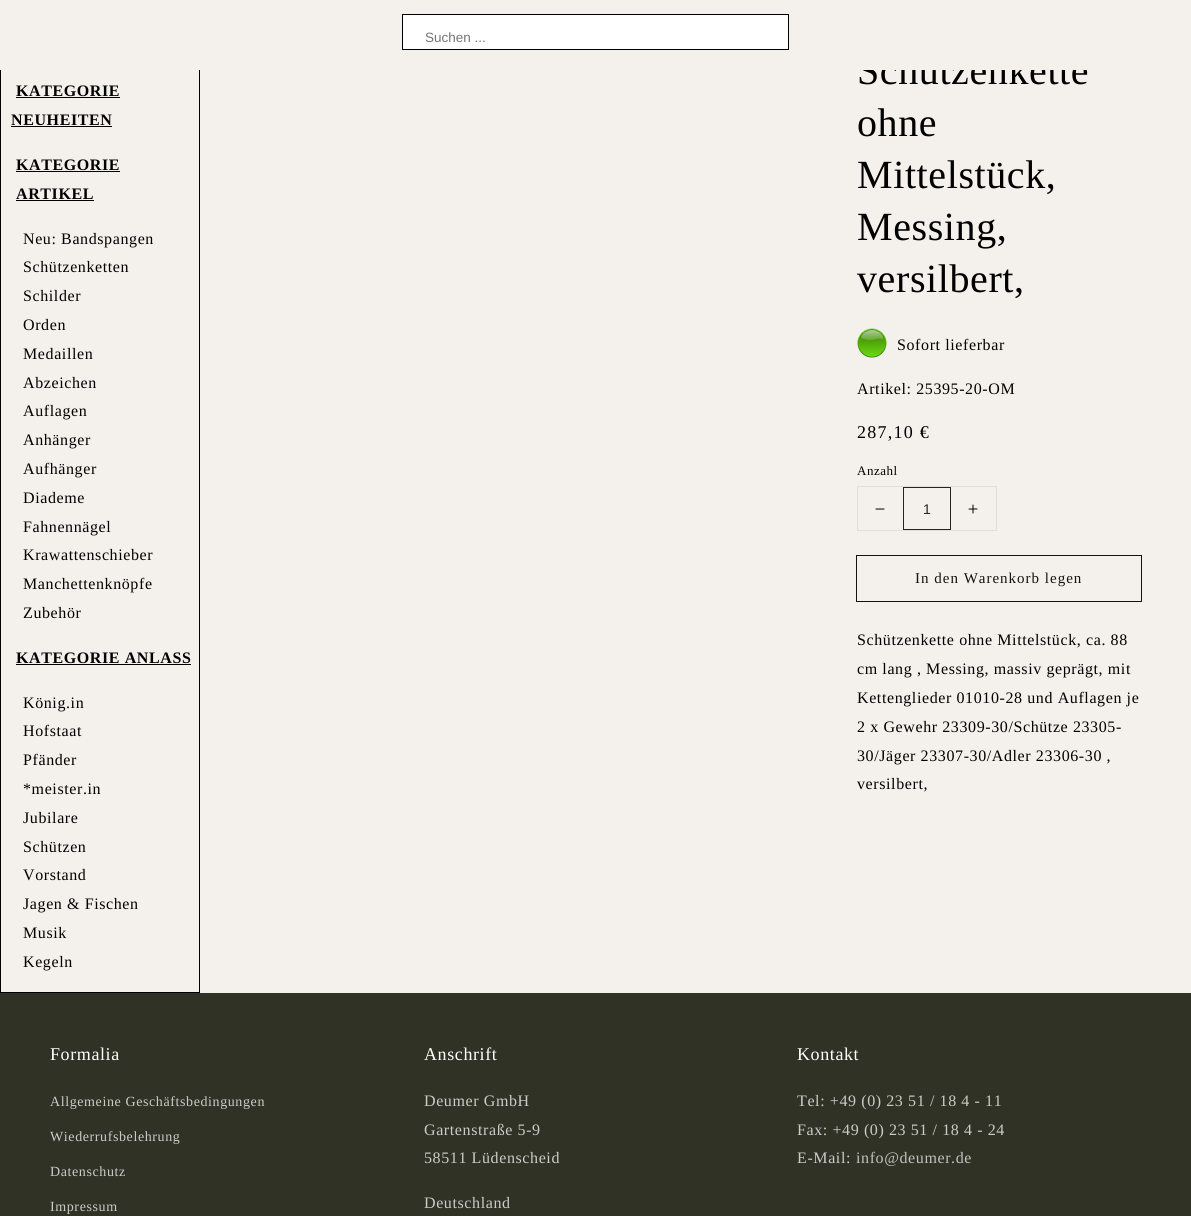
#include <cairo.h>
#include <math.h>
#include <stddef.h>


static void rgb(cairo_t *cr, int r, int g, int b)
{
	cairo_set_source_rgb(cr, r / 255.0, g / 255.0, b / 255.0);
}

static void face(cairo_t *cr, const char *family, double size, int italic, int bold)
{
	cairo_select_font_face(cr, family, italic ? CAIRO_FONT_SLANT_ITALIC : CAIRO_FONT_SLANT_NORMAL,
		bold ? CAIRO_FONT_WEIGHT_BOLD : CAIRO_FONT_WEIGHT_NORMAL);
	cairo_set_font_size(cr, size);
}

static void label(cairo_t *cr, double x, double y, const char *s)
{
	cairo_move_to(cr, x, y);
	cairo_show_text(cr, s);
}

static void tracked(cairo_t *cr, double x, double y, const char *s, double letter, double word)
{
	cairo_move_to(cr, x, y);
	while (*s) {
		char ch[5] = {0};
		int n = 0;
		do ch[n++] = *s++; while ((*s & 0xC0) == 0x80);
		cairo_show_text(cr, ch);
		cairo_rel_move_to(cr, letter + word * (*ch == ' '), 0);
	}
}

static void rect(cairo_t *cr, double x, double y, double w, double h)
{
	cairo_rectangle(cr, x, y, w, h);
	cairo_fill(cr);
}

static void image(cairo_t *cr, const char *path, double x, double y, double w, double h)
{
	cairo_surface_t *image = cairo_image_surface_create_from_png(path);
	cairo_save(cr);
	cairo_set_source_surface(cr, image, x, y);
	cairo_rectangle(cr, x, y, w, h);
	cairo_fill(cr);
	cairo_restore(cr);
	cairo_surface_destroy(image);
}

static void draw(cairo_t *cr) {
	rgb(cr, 244, 241, 236);
	cairo_paint(cr);
	cairo_rectangle(cr, 0.5, 45.5, 199, 947);
	rgb(cr, 0, 0, 0);
	cairo_set_line_width(cr, 1);
	cairo_stroke(cr);
	face(cr, "Liberation Serif", 40, 0, 0);
	tracked(cr, 857, 84, "Schützenkette", 0.6, 0);
	rgb(cr, 244, 241, 236);
	rect(cr, 0, 45, 1087, 25);
	rgb(cr, 255, 255, 255);
	cairo_rectangle(cr, 402.5, 14.5, 386, 35);
	cairo_fill_preserve(cr);
	rgb(cr, 0, 0, 0);
	cairo_stroke(cr);
	face(cr, "Liberation Sans", 13.5, 0, 0);
	rgb(cr, 117, 117, 117);
	label(cr, 425, 42, "Suchen ...");
	face(cr, "Liberation Serif", 16, 0, 1);
	rgb(cr, 0, 0, 0);
	tracked(cr, 16, 96, "KATEGORIE", 0.6, 0);
	rect(cr, 16, 97, 104, 1);
	tracked(cr, 11, 125, "NEUHEITEN", 0.6, 0);
	rect(cr, 11, 126, 101, 1);
	tracked(cr, 16, 170, "KATEGORIE", 0.6, 0);
	rect(cr, 16, 171, 104, 1);
	tracked(cr, 16, 199, "ARTIKEL", 0.6, 0);
	rect(cr, 16, 200, 78, 1);
	face(cr, "Liberation Serif", 16, 0, 0);
	tracked(cr, 23, 244, "Neu: Bandspangen", 0.6, 0);
	tracked(cr, 23, 272, "Schützenketten", 0.6, 0);
	tracked(cr, 23, 301, "Schilder", 0.6, 0);
	tracked(cr, 23, 330, "Orden", 0.6, 0);
	tracked(cr, 23, 359, "Medaillen", 0.6, 0);
	tracked(cr, 23, 388, "Abzeichen", 0.6, 0);
	tracked(cr, 23, 416, "Auflagen", 0.6, 0);
	tracked(cr, 23, 445, "Anhänger", 0.6, 0);
	tracked(cr, 23, 474, "Aufhänger", 0.6, 0);
	tracked(cr, 23, 503, "Diademe", 0.6, 0);
	tracked(cr, 23, 532, "Fahnennägel", 0.6, 0);
	tracked(cr, 23, 560, "Krawattenschieber", 0.6, 0);
	tracked(cr, 23, 589, "Manchettenknöpfe", 0.6, 0);
	tracked(cr, 23, 618, "Zubehör", 0.6, 0);
	face(cr, "Liberation Serif", 16, 0, 1);
	tracked(cr, 16, 663, "KATEGORIE ANLASS", 0.6, 0);
	rect(cr, 16, 664, 175, 1);
	face(cr, "Liberation Serif", 16, 0, 0);
	tracked(cr, 23, 708, "König.in", 0.6, 0);
	tracked(cr, 23, 736, "Hofstaat", 0.6, 0);
	tracked(cr, 23, 765, "Pfänder", 0.6, 0);
	tracked(cr, 23, 794, "*meister.in", 0.6, 0);
	tracked(cr, 23, 823, "Jubilare", 0.6, 0);
	tracked(cr, 23, 852, "Schützen", 0.6, 0);
	tracked(cr, 23, 880, "Vorstand", 0.6, 0);
	tracked(cr, 23, 909, "Jagen & Fischen", 0.6, 0);
	tracked(cr, 23, 938, "Musik", 0.6, 0);
	tracked(cr, 23, 967, "Kegeln", 0.6, 0);
	face(cr, "Liberation Serif", 40, 0, 0);
	tracked(cr, 857, 136, "ohne", 0.6, 0);
	tracked(cr, 857, 188, "Mittelstück,", 0.6, 0);
	tracked(cr, 857, 240, "Messing,", 0.6, 0);
	tracked(cr, 857, 292, "versilbert,", 0.6, 0);
	image(cr, "image0.png", 857, 328, 30, 30);
	face(cr, "Liberation Serif", 16, 0, 0);
	tracked(cr, 897, 350, "Sofort lieferbar", 0.6, 0);
	tracked(cr, 857, 394, "Artikel: 25395-20-OM", 0.6, 0);
	face(cr, "Liberation Serif", 18, 0, 0);
	tracked(cr, 857, 438, "287,10 €", 1.25, 0);
	face(cr, "Liberation Serif", 13, 0, 0);
	tracked(cr, 857, 475, "Anzahl", 0.5, 0);
	cairo_rectangle(cr, 857.5, 486.5, 139, 44);
	rgb(cr, 226, 223, 219);
	cairo_stroke(cr);
	image(cr, "image1.png", 875, 508, 10, 2);
	cairo_rectangle(cr, 903.5, 487.5, 47, 42);
	rgb(cr, 37, 36, 35);
	cairo_stroke(cr);
	face(cr, "Liberation Sans", 14, 0, 0);
	label(cr, 923, 514, "1");
	image(cr, "image2.png", 968, 504, 10, 10);
	cairo_rectangle(cr, 856.5, 555.5, 285, 46);
	rgb(cr, 18, 18, 18);
	cairo_stroke(cr);
	face(cr, "Liberation Serif", 15, 0, 0);
	tracked(cr, 915, 583, "In den Warenkorb legen", 1, 0);
	face(cr, "Liberation Serif", 16, 0, 0);
	rgb(cr, 0, 0, 0);
	tracked(cr, 857, 645, "Schützenkette ohne Mittelstück, ca. 88", 0.6, 0);
	tracked(cr, 857, 674, "cm lang , Messing, massiv geprägt, mit", 0.6, 0);
	tracked(cr, 857, 703, "Kettenglieder 01010-28 und Auflagen je", 0.6, 0);
	tracked(cr, 857, 732, "2 x Gewehr 23309-30/Schütze 23305-", 0.6, 0);
	tracked(cr, 857, 761, "30/Jäger 23307-30/Adler 23306-30 ,", 0.6, 0);
	tracked(cr, 857, 789, "versilbert,", 0.6, 0);
	rgb(cr, 47, 50, 37);
	rect(cr, 0, 993, 1191, 223);
	face(cr, "Liberation Serif", 18, 0, 0);
	rgb(cr, 255, 255, 255);
	tracked(cr, 50, 1060, "Formalia", 0.6, 0);
	face(cr, "Liberation Serif", 14, 0, 0);
	rgb(cr, 203, 204, 201);
	tracked(cr, 50, 1106, "Allgemeine Geschäftsbedingungen", 0.6, 0);
	tracked(cr, 50, 1141, "Wiederrufsbelehrung", 0.6, 0);
	tracked(cr, 50, 1176, "Datenschutz", 0.6, 0);
	tracked(cr, 50, 1211, "Impressum", 0.6, 0);
	face(cr, "Liberation Serif", 18, 0, 0);
	rgb(cr, 255, 255, 255);
	tracked(cr, 424, 1060, "Anschrift", 0.6, 0);
	face(cr, "Liberation Serif", 16, 0, 0);
	rgb(cr, 203, 204, 201);
	tracked(cr, 424, 1106, "Deumer GmbH", 0.6, 0);
	tracked(cr, 424, 1135, "Gartenstraße 5-9", 0.6, 0);
	tracked(cr, 424, 1163, "58511 Lüdenscheid", 0.6, 0);
	tracked(cr, 424, 1208, "Deutschland", 0.6, 0);
	face(cr, "Liberation Serif", 18, 0, 0);
	rgb(cr, 255, 255, 255);
	tracked(cr, 797, 1060, "Kontakt", 0.6, 0);
	face(cr, "Liberation Serif", 16, 0, 0);
	rgb(cr, 203, 204, 201);
	tracked(cr, 797, 1106, "Tel: +49 (0) 23 51 / 18 4 - 11", 0.6, 0);
	tracked(cr, 797, 1135, "Fax: +49 (0) 23 51 / 18 4 - 24", 0.6, 0);
	tracked(cr, 797, 1163, "E-Mail:", 0.6, 0);
	rgb(cr, 193, 194, 190);
	tracked(cr, 856, 1163, "info@deumer.de", 0.6, 0);
}

int main(void) {
	cairo_surface_t *surface = cairo_image_surface_create(CAIRO_FORMAT_RGB24, 1191, 1216);
	cairo_t *cr = cairo_create(surface);
	cairo_font_options_t *options = cairo_font_options_create();
	cairo_font_options_set_hint_metrics(options, CAIRO_HINT_METRICS_OFF);
	cairo_font_options_set_hint_style(options, CAIRO_HINT_STYLE_NONE);
	cairo_set_font_options(cr, options);
	cairo_set_miter_limit(cr, 4);
	draw(cr);
	cairo_surface_write_to_png(surface, "render.png");
	cairo_font_options_destroy(options);
	cairo_destroy(cr);
	cairo_surface_destroy(surface);
	return 0;
}
